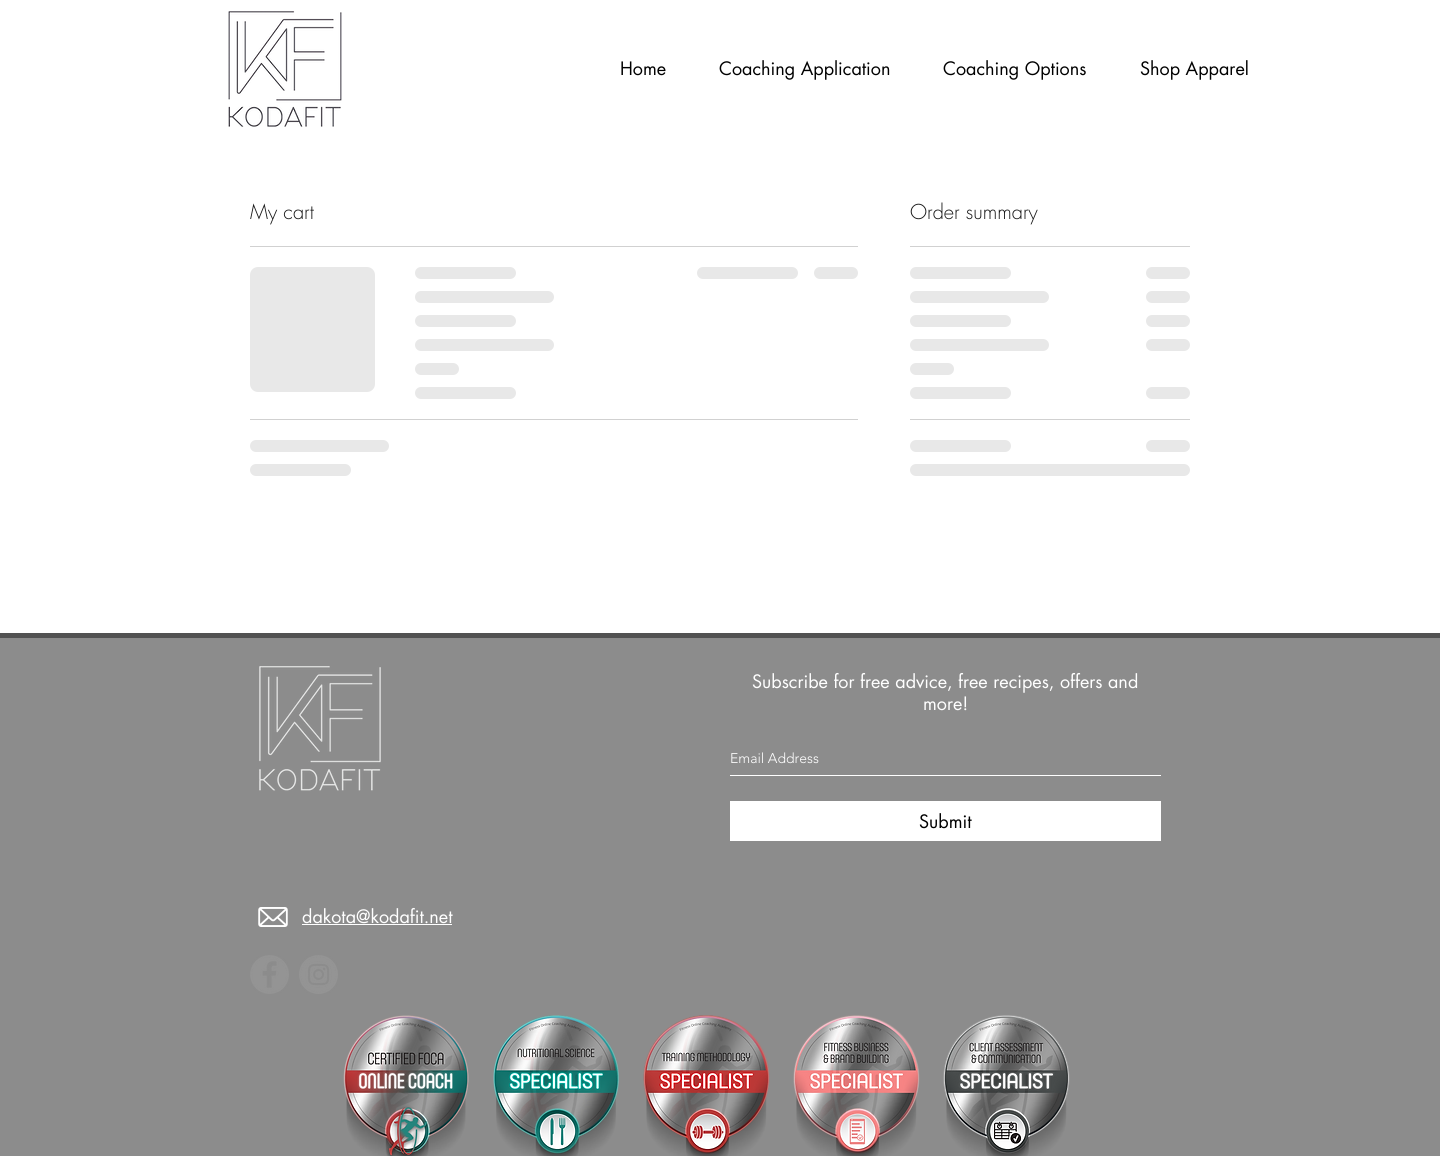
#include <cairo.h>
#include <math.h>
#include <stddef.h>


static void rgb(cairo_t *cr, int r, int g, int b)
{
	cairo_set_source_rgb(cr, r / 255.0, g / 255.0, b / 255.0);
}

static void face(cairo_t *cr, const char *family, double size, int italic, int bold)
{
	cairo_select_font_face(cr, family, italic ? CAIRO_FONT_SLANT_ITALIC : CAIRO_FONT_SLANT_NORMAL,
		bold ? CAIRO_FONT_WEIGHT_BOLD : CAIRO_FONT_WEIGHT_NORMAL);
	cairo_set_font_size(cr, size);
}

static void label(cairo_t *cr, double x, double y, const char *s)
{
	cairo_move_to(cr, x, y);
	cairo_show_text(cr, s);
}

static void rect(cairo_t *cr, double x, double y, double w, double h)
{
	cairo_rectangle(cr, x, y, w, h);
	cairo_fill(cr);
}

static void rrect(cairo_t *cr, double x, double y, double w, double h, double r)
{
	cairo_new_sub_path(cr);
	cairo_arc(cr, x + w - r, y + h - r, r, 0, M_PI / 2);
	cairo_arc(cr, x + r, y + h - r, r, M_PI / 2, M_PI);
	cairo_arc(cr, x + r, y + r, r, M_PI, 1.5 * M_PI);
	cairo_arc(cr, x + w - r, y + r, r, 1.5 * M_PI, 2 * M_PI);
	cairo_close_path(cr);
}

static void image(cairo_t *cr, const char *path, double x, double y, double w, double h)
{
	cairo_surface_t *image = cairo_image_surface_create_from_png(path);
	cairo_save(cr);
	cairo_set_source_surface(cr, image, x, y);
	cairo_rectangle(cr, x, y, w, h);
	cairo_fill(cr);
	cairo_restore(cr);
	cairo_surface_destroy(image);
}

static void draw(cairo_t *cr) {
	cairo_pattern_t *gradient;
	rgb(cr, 255, 255, 255);
	cairo_paint(cr);
	image(cr, "image0.png", 228, 11, 114, 116);
	face(cr, "futura", 18, 0, 0);
	rgb(cr, 0, 0, 0);
	label(cr, 620, 75, "Home");
	label(cr, 719, 75, "Coaching Application");
	label(cr, 943, 75, "Coaching Options");
	label(cr, 1140, 75, "Shop Apparel");
	rgb(cr, 209, 209, 209);
	rect(cr, 250, 246, 608, 1);
	face(cr, "futura Light", 20, 0, 0);
	rgb(cr, 24, 24, 24);
	label(cr, 250, 219, "My cart");
	gradient = cairo_pattern_create_linear(250, 330, 750, 330);
	cairo_pattern_add_color_stop_rgba(gradient, 0.25, 0.91, 0.91, 0.91, 1);
	cairo_pattern_add_color_stop_rgba(gradient, 0.37, 0.82, 0.82, 0.82, 1);
	cairo_pattern_add_color_stop_rgba(gradient, 0.63, 0.91, 0.91, 0.91, 1);
	cairo_set_source(cr, gradient);
	cairo_pattern_destroy(gradient);
	rrect(cr, 250, 267, 125, 125, 8);
	cairo_fill(cr);
	gradient = cairo_pattern_create_linear(415, 273, 819, 273);
	cairo_pattern_add_color_stop_rgba(gradient, 0.25, 0.91, 0.91, 0.91, 1);
	cairo_pattern_add_color_stop_rgba(gradient, 0.37, 0.82, 0.82, 0.82, 1);
	cairo_pattern_add_color_stop_rgba(gradient, 0.63, 0.91, 0.91, 0.91, 1);
	cairo_set_source(cr, gradient);
	cairo_pattern_destroy(gradient);
	rrect(cr, 415, 267, 101, 12, 6);
	cairo_fill(cr);
	gradient = cairo_pattern_create_linear(415, 297, 971, 297);
	cairo_pattern_add_color_stop_rgba(gradient, 0.25, 0.91, 0.91, 0.91, 1);
	cairo_pattern_add_color_stop_rgba(gradient, 0.37, 0.82, 0.82, 0.82, 1);
	cairo_pattern_add_color_stop_rgba(gradient, 0.63, 0.91, 0.91, 0.91, 1);
	cairo_set_source(cr, gradient);
	cairo_pattern_destroy(gradient);
	rrect(cr, 415, 291, 139, 12, 6);
	cairo_fill(cr);
	gradient = cairo_pattern_create_linear(415, 321, 819, 321);
	cairo_pattern_add_color_stop_rgba(gradient, 0.25, 0.91, 0.91, 0.91, 1);
	cairo_pattern_add_color_stop_rgba(gradient, 0.37, 0.82, 0.82, 0.82, 1);
	cairo_pattern_add_color_stop_rgba(gradient, 0.63, 0.91, 0.91, 0.91, 1);
	cairo_set_source(cr, gradient);
	cairo_pattern_destroy(gradient);
	rrect(cr, 415, 315, 101, 12, 6);
	cairo_fill(cr);
	gradient = cairo_pattern_create_linear(415, 345, 971, 345);
	cairo_pattern_add_color_stop_rgba(gradient, 0.25, 0.91, 0.91, 0.91, 1);
	cairo_pattern_add_color_stop_rgba(gradient, 0.37, 0.82, 0.82, 0.82, 1);
	cairo_pattern_add_color_stop_rgba(gradient, 0.63, 0.91, 0.91, 0.91, 1);
	cairo_set_source(cr, gradient);
	cairo_pattern_destroy(gradient);
	rrect(cr, 415, 339, 139, 12, 6);
	cairo_fill(cr);
	gradient = cairo_pattern_create_linear(415, 369, 591, 369);
	cairo_pattern_add_color_stop_rgba(gradient, 0.25, 0.91, 0.91, 0.91, 1);
	cairo_pattern_add_color_stop_rgba(gradient, 0.37, 0.82, 0.82, 0.82, 1);
	cairo_pattern_add_color_stop_rgba(gradient, 0.63, 0.91, 0.91, 0.91, 1);
	cairo_set_source(cr, gradient);
	cairo_pattern_destroy(gradient);
	rrect(cr, 415, 363, 44, 12, 6);
	cairo_fill(cr);
	gradient = cairo_pattern_create_linear(415, 393, 819, 393);
	cairo_pattern_add_color_stop_rgba(gradient, 0.25, 0.91, 0.91, 0.91, 1);
	cairo_pattern_add_color_stop_rgba(gradient, 0.37, 0.82, 0.82, 0.82, 1);
	cairo_pattern_add_color_stop_rgba(gradient, 0.63, 0.91, 0.91, 0.91, 1);
	cairo_set_source(cr, gradient);
	cairo_pattern_destroy(gradient);
	rrect(cr, 415, 387, 101, 12, 6);
	cairo_fill(cr);
	gradient = cairo_pattern_create_linear(697, 273, 1101, 273);
	cairo_pattern_add_color_stop_rgba(gradient, 0.25, 0.91, 0.91, 0.91, 1);
	cairo_pattern_add_color_stop_rgba(gradient, 0.37, 0.82, 0.82, 0.82, 1);
	cairo_pattern_add_color_stop_rgba(gradient, 0.63, 0.91, 0.91, 0.91, 1);
	cairo_set_source(cr, gradient);
	cairo_pattern_destroy(gradient);
	rrect(cr, 697, 267, 101, 12, 6);
	cairo_fill(cr);
	gradient = cairo_pattern_create_linear(814, 273, 990, 273);
	cairo_pattern_add_color_stop_rgba(gradient, 0.25, 0.91, 0.91, 0.91, 1);
	cairo_pattern_add_color_stop_rgba(gradient, 0.37, 0.82, 0.82, 0.82, 1);
	cairo_pattern_add_color_stop_rgba(gradient, 0.63, 0.91, 0.91, 0.91, 1);
	cairo_set_source(cr, gradient);
	cairo_pattern_destroy(gradient);
	rrect(cr, 814, 267, 44, 12, 6);
	cairo_fill(cr);
	rgb(cr, 209, 209, 209);
	rect(cr, 250, 419, 608, 1);
	gradient = cairo_pattern_create_linear(250, 446, 806, 446);
	cairo_pattern_add_color_stop_rgba(gradient, 0.25, 0.91, 0.91, 0.91, 1);
	cairo_pattern_add_color_stop_rgba(gradient, 0.37, 0.82, 0.82, 0.82, 1);
	cairo_pattern_add_color_stop_rgba(gradient, 0.63, 0.91, 0.91, 0.91, 1);
	cairo_set_source(cr, gradient);
	cairo_pattern_destroy(gradient);
	rrect(cr, 250, 440, 139, 12, 6);
	cairo_fill(cr);
	gradient = cairo_pattern_create_linear(250, 470, 654, 470);
	cairo_pattern_add_color_stop_rgba(gradient, 0.25, 0.91, 0.91, 0.91, 1);
	cairo_pattern_add_color_stop_rgba(gradient, 0.37, 0.82, 0.82, 0.82, 1);
	cairo_pattern_add_color_stop_rgba(gradient, 0.63, 0.91, 0.91, 0.91, 1);
	cairo_set_source(cr, gradient);
	cairo_pattern_destroy(gradient);
	rrect(cr, 250, 464, 101, 12, 6);
	cairo_fill(cr);
	rgb(cr, 209, 209, 209);
	rect(cr, 910, 246, 280, 1);
	rgb(cr, 24, 24, 24);
	label(cr, 910, 219, "Order summary");
	gradient = cairo_pattern_create_linear(910, 273, 1314, 273);
	cairo_pattern_add_color_stop_rgba(gradient, 0.25, 0.91, 0.91, 0.91, 1);
	cairo_pattern_add_color_stop_rgba(gradient, 0.37, 0.82, 0.82, 0.82, 1);
	cairo_pattern_add_color_stop_rgba(gradient, 0.63, 0.91, 0.91, 0.91, 1);
	cairo_set_source(cr, gradient);
	cairo_pattern_destroy(gradient);
	rrect(cr, 910, 267, 101, 12, 6);
	cairo_fill(cr);
	gradient = cairo_pattern_create_linear(1146, 273, 1322, 273);
	cairo_pattern_add_color_stop_rgba(gradient, 0.25, 0.91, 0.91, 0.91, 1);
	cairo_pattern_add_color_stop_rgba(gradient, 0.37, 0.82, 0.82, 0.82, 1);
	cairo_pattern_add_color_stop_rgba(gradient, 0.63, 0.91, 0.91, 0.91, 1);
	cairo_set_source(cr, gradient);
	cairo_pattern_destroy(gradient);
	rrect(cr, 1146, 267, 44, 12, 6);
	cairo_fill(cr);
	gradient = cairo_pattern_create_linear(910, 297, 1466, 297);
	cairo_pattern_add_color_stop_rgba(gradient, 0.25, 0.91, 0.91, 0.91, 1);
	cairo_pattern_add_color_stop_rgba(gradient, 0.37, 0.82, 0.82, 0.82, 1);
	cairo_pattern_add_color_stop_rgba(gradient, 0.63, 0.91, 0.91, 0.91, 1);
	cairo_set_source(cr, gradient);
	cairo_pattern_destroy(gradient);
	rrect(cr, 910, 291, 139, 12, 6);
	cairo_fill(cr);
	gradient = cairo_pattern_create_linear(1146, 297, 1322, 297);
	cairo_pattern_add_color_stop_rgba(gradient, 0.25, 0.91, 0.91, 0.91, 1);
	cairo_pattern_add_color_stop_rgba(gradient, 0.37, 0.82, 0.82, 0.82, 1);
	cairo_pattern_add_color_stop_rgba(gradient, 0.63, 0.91, 0.91, 0.91, 1);
	cairo_set_source(cr, gradient);
	cairo_pattern_destroy(gradient);
	rrect(cr, 1146, 291, 44, 12, 6);
	cairo_fill(cr);
	gradient = cairo_pattern_create_linear(910, 321, 1314, 321);
	cairo_pattern_add_color_stop_rgba(gradient, 0.25, 0.91, 0.91, 0.91, 1);
	cairo_pattern_add_color_stop_rgba(gradient, 0.37, 0.82, 0.82, 0.82, 1);
	cairo_pattern_add_color_stop_rgba(gradient, 0.63, 0.91, 0.91, 0.91, 1);
	cairo_set_source(cr, gradient);
	cairo_pattern_destroy(gradient);
	rrect(cr, 910, 315, 101, 12, 6);
	cairo_fill(cr);
	gradient = cairo_pattern_create_linear(1146, 321, 1322, 321);
	cairo_pattern_add_color_stop_rgba(gradient, 0.25, 0.91, 0.91, 0.91, 1);
	cairo_pattern_add_color_stop_rgba(gradient, 0.37, 0.82, 0.82, 0.82, 1);
	cairo_pattern_add_color_stop_rgba(gradient, 0.63, 0.91, 0.91, 0.91, 1);
	cairo_set_source(cr, gradient);
	cairo_pattern_destroy(gradient);
	rrect(cr, 1146, 315, 44, 12, 6);
	cairo_fill(cr);
	gradient = cairo_pattern_create_linear(910, 345, 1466, 345);
	cairo_pattern_add_color_stop_rgba(gradient, 0.25, 0.91, 0.91, 0.91, 1);
	cairo_pattern_add_color_stop_rgba(gradient, 0.37, 0.82, 0.82, 0.82, 1);
	cairo_pattern_add_color_stop_rgba(gradient, 0.63, 0.91, 0.91, 0.91, 1);
	cairo_set_source(cr, gradient);
	cairo_pattern_destroy(gradient);
	rrect(cr, 910, 339, 139, 12, 6);
	cairo_fill(cr);
	gradient = cairo_pattern_create_linear(1146, 345, 1322, 345);
	cairo_pattern_add_color_stop_rgba(gradient, 0.25, 0.91, 0.91, 0.91, 1);
	cairo_pattern_add_color_stop_rgba(gradient, 0.37, 0.82, 0.82, 0.82, 1);
	cairo_pattern_add_color_stop_rgba(gradient, 0.63, 0.91, 0.91, 0.91, 1);
	cairo_set_source(cr, gradient);
	cairo_pattern_destroy(gradient);
	rrect(cr, 1146, 339, 44, 12, 6);
	cairo_fill(cr);
	gradient = cairo_pattern_create_linear(910, 369, 1086, 369);
	cairo_pattern_add_color_stop_rgba(gradient, 0.25, 0.91, 0.91, 0.91, 1);
	cairo_pattern_add_color_stop_rgba(gradient, 0.37, 0.82, 0.82, 0.82, 1);
	cairo_pattern_add_color_stop_rgba(gradient, 0.63, 0.91, 0.91, 0.91, 1);
	cairo_set_source(cr, gradient);
	cairo_pattern_destroy(gradient);
	rrect(cr, 910, 363, 44, 12, 6);
	cairo_fill(cr);
	gradient = cairo_pattern_create_linear(910, 393, 1314, 393);
	cairo_pattern_add_color_stop_rgba(gradient, 0.25, 0.91, 0.91, 0.91, 1);
	cairo_pattern_add_color_stop_rgba(gradient, 0.37, 0.82, 0.82, 0.82, 1);
	cairo_pattern_add_color_stop_rgba(gradient, 0.63, 0.91, 0.91, 0.91, 1);
	cairo_set_source(cr, gradient);
	cairo_pattern_destroy(gradient);
	rrect(cr, 910, 387, 101, 12, 6);
	cairo_fill(cr);
	gradient = cairo_pattern_create_linear(1146, 393, 1322, 393);
	cairo_pattern_add_color_stop_rgba(gradient, 0.25, 0.91, 0.91, 0.91, 1);
	cairo_pattern_add_color_stop_rgba(gradient, 0.37, 0.82, 0.82, 0.82, 1);
	cairo_pattern_add_color_stop_rgba(gradient, 0.63, 0.91, 0.91, 0.91, 1);
	cairo_set_source(cr, gradient);
	cairo_pattern_destroy(gradient);
	rrect(cr, 1146, 387, 44, 12, 6);
	cairo_fill(cr);
	rgb(cr, 209, 209, 209);
	rect(cr, 910, 419, 280, 1);
	gradient = cairo_pattern_create_linear(910, 446, 1314, 446);
	cairo_pattern_add_color_stop_rgba(gradient, 0.25, 0.91, 0.91, 0.91, 1);
	cairo_pattern_add_color_stop_rgba(gradient, 0.37, 0.82, 0.82, 0.82, 1);
	cairo_pattern_add_color_stop_rgba(gradient, 0.63, 0.91, 0.91, 0.91, 1);
	cairo_set_source(cr, gradient);
	cairo_pattern_destroy(gradient);
	rrect(cr, 910, 440, 101, 12, 6);
	cairo_fill(cr);
	gradient = cairo_pattern_create_linear(1146, 446, 1322, 446);
	cairo_pattern_add_color_stop_rgba(gradient, 0.25, 0.91, 0.91, 0.91, 1);
	cairo_pattern_add_color_stop_rgba(gradient, 0.37, 0.82, 0.82, 0.82, 1);
	cairo_pattern_add_color_stop_rgba(gradient, 0.63, 0.91, 0.91, 0.91, 1);
	cairo_set_source(cr, gradient);
	cairo_pattern_destroy(gradient);
	rrect(cr, 1146, 440, 44, 12, 6);
	cairo_fill(cr);
	gradient = cairo_pattern_create_linear(910, 470, 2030, 470);
	cairo_pattern_add_color_stop_rgba(gradient, 0.25, 0.91, 0.91, 0.91, 1);
	cairo_pattern_add_color_stop_rgba(gradient, 0.37, 0.82, 0.82, 0.82, 1);
	cairo_pattern_add_color_stop_rgba(gradient, 0.63, 0.91, 0.91, 0.91, 1);
	cairo_set_source(cr, gradient);
	cairo_pattern_destroy(gradient);
	rrect(cr, 910, 464, 280, 12, 6);
	cairo_fill(cr);
	rgb(cr, 140, 140, 140);
	rect(cr, 0, 638, 1440, 518);
	rgb(cr, 82, 82, 82);
	rect(cr, 0, 633, 1440, 5);
	image(cr, "image1.png", 259, 666, 122, 125);
	face(cr, "futura", 18, 0, 0);
	rgb(cr, 255, 255, 255);
	label(cr, 752, 688, "Subscribe for free advice, free recipes, offers and");
	label(cr, 923, 710, "more!");
	rect(cr, 730, 775, 431, 1);
	face(cr, "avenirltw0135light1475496 Light", 14, 0, 0);
	label(cr, 730, 763, "Email Address");
	rect(cr, 730, 801, 431, 40);
	face(cr, "futura", 18, 0, 0);
	rgb(cr, 0, 0, 0);
	label(cr, 919, 828, "Submit");
	image(cr, "image2.png", 258, 907, 30, 20);
	rgb(cr, 255, 255, 255);
	label(cr, 302, 923, "dakota@kodafit.net");
	rect(cr, 302, 924, 150, 1);
	image(cr, "image3.png", 250, 955, 39, 39);
	image(cr, "image4.png", 299, 955, 39, 39);
	image(cr, "image5.png", 343, 1015, 126, 141);
	image(cr, "image6.png", 493, 1015, 127, 141);
	image(cr, "image7.png", 643, 1015, 127, 141);
	image(cr, "image8.png", 793, 1015, 127, 141);
	image(cr, "image9.png", 943, 1015, 127, 141);
}

int main(void) {
	cairo_surface_t *surface = cairo_image_surface_create(CAIRO_FORMAT_RGB24, 1440, 1156);
	cairo_t *cr = cairo_create(surface);
	cairo_font_options_t *options = cairo_font_options_create();
	cairo_font_options_set_hint_metrics(options, CAIRO_HINT_METRICS_OFF);
	cairo_font_options_set_hint_style(options, CAIRO_HINT_STYLE_NONE);
	cairo_set_font_options(cr, options);
	cairo_set_miter_limit(cr, 4);
	draw(cr);
	cairo_surface_write_to_png(surface, "render.png");
	cairo_font_options_destroy(options);
	cairo_destroy(cr);
	cairo_surface_destroy(surface);
	return 0;
}
